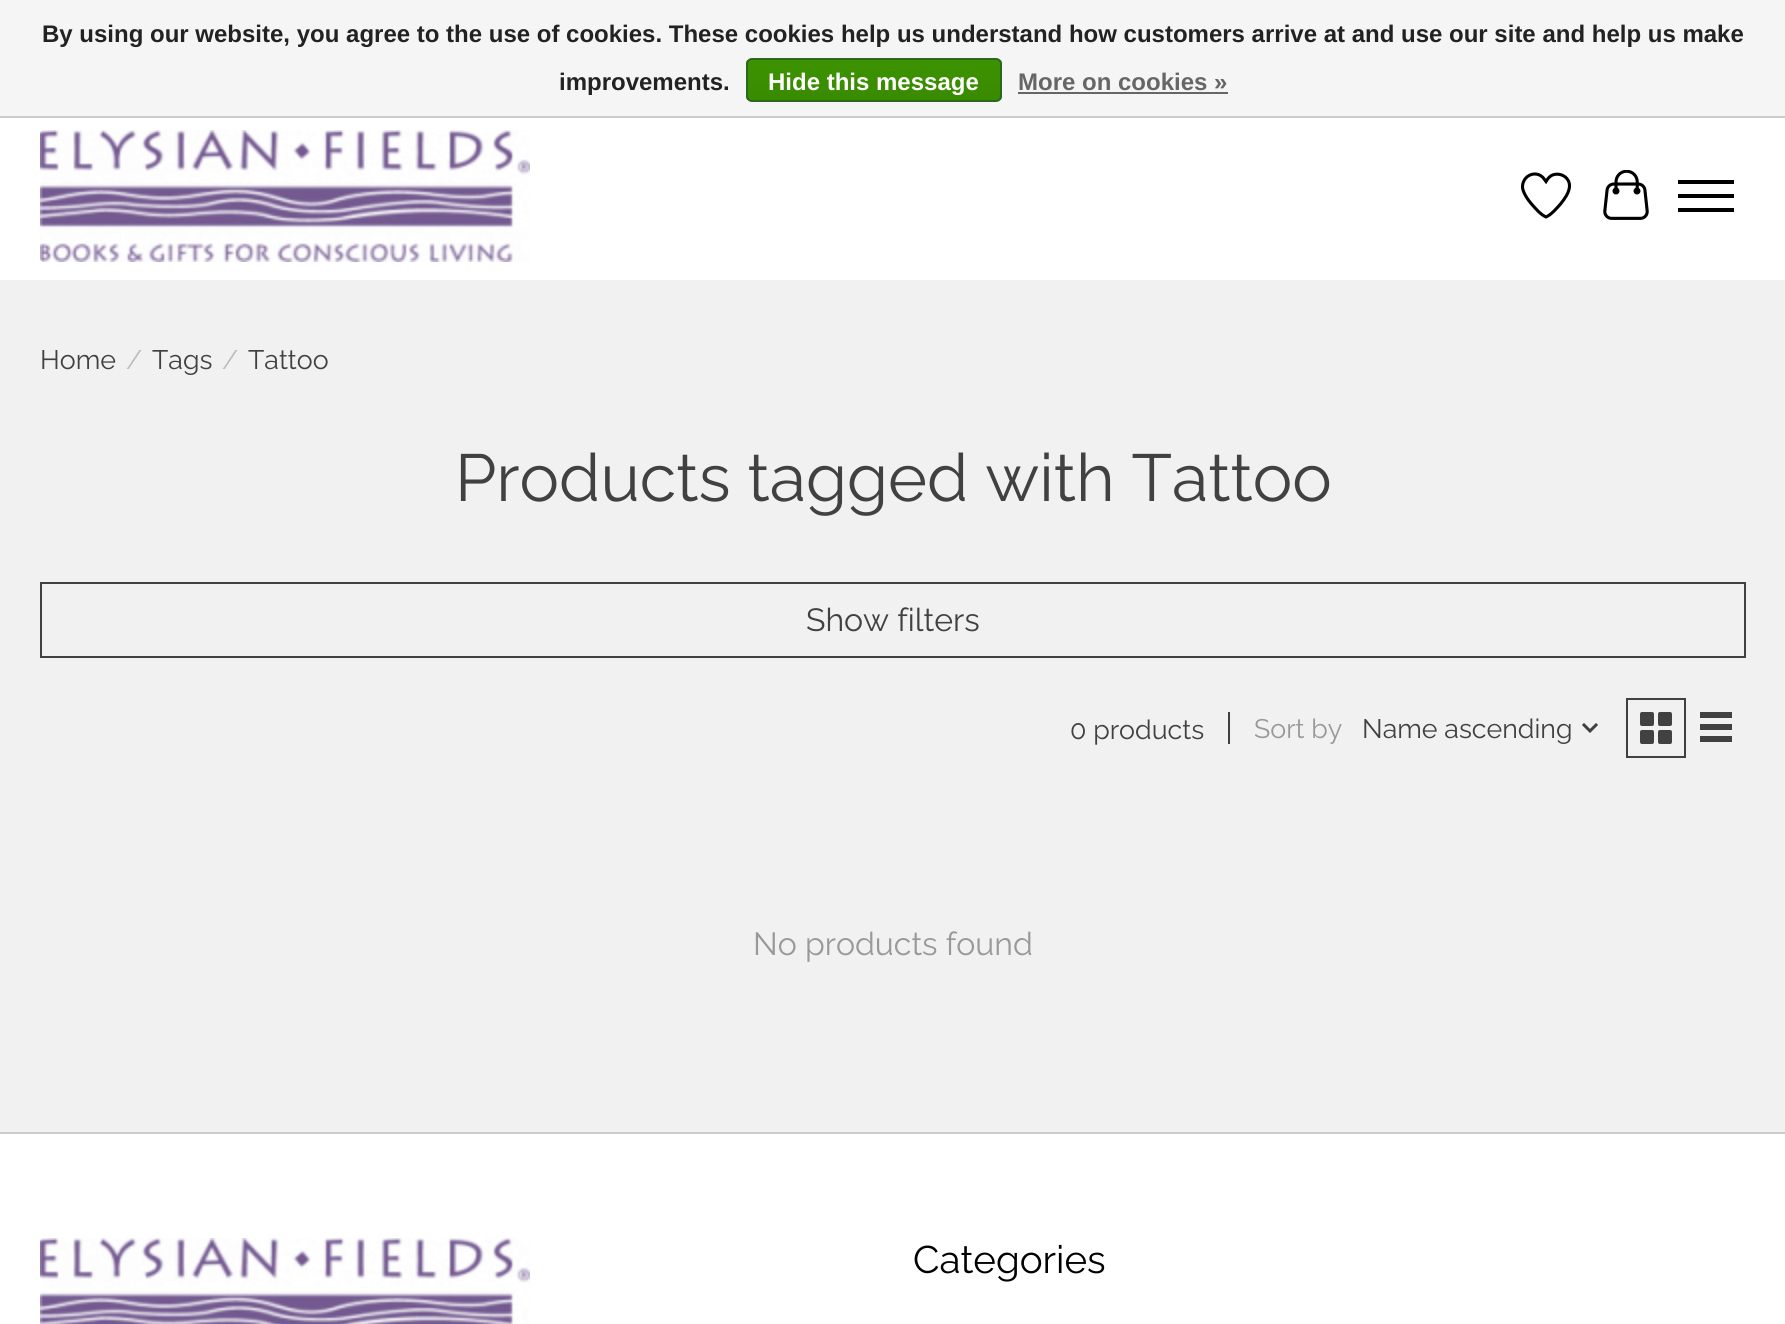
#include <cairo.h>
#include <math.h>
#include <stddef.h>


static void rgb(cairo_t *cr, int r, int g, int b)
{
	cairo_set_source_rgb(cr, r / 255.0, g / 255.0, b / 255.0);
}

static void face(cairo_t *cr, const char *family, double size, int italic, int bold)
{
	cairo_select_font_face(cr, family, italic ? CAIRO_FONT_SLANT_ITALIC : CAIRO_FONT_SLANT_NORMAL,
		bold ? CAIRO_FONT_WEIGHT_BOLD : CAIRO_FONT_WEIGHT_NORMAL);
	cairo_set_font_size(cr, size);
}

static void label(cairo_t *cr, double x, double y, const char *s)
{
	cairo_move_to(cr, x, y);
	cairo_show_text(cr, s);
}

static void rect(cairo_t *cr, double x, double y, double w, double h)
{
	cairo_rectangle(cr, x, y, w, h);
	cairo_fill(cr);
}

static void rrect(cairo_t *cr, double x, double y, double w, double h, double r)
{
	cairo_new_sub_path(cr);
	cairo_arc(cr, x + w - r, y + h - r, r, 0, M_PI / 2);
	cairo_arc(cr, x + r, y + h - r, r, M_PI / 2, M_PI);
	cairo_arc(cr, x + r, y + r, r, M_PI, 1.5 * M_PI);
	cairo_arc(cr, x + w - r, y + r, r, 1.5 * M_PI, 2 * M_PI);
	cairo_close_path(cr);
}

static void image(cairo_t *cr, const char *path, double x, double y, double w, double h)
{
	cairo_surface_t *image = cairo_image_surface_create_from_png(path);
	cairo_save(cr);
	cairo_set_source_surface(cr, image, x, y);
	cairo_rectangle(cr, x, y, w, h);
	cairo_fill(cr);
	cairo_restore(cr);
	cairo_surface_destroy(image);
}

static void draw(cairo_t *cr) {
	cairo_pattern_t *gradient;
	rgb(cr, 241, 241, 241);
	cairo_paint(cr);
	rgb(cr, 245, 245, 245);
	rect(cr, 0, 0, 1785, 116);
	rgb(cr, 204, 204, 204);
	rect(cr, 0, 116, 1785, 2);
	face(cr, "Liberation Sans", 24, 0, 1);
	rgb(cr, 34, 34, 34);
	label(cr, 42, 42, "By using our website, you agree to the use of cookies. These cookies help us understand how customers arrive at and use our site and help us make");
	label(cr, 559, 90, "improvements.");
	cairo_save(cr);
	rrect(cr, 746, 58, 256, 44, 6);
	cairo_clip(cr);
	gradient = cairo_pattern_create_linear(874, 60, 874, 100);
	cairo_pattern_add_color_stop_rgba(gradient, 0, 0.235, 0.576, 0, 1);
	cairo_pattern_add_color_stop_rgba(gradient, 1, 0.224, 0.541, 0, 1);
	cairo_set_source(cr, gradient);
	cairo_pattern_destroy(gradient);
	rect(cr, 746, 60, 256, 40);
	cairo_restore(cr);
	rrect(cr, 747, 59, 254, 42, 5);
	rgb(cr, 41, 105, 29);
	cairo_stroke(cr);
	rgb(cr, 255, 255, 255);
	label(cr, 768, 90, "Hide this message");
	rgb(cr, 102, 102, 102);
	label(cr, 1018, 90, "More on cookies »");
	rect(cr, 1018, 92, 210, 2);
	rgb(cr, 255, 255, 255);
	rect(cr, 0, 118, 1785, 162);
	image(cr, "image0.png", 40, 130, 490, 132);
	cairo_new_path(cr);
	cairo_move_to(cr, 1544.5, 179.5);
	cairo_line_to(cr, 1546, 181.5);
	cairo_curve_to(cr, 1547.5, 179, 1549, 177, 1551.5, 175.5);
	cairo_curve_to(cr, 1559.5, 171.5, 1570, 177, 1569.5, 186.5);
	cairo_curve_to(cr, 1569, 193, 1564.5, 199, 1560.5, 204);
	cairo_curve_to(cr, 1556.5, 208.5, 1551.5, 214.5, 1546, 217);
	cairo_curve_to(cr, 1540.5, 214.5, 1535.5, 208.5, 1531.5, 204);
	cairo_curve_to(cr, 1528, 200, 1522, 191.5, 1522.5, 186);
	cairo_curve_to(cr, 1523.5, 174, 1538, 169.5, 1544.5, 179.5);
	cairo_close_path(cr);
	rgb(cr, 0, 0, 0);
	cairo_set_line_width(cr, 3.1);
	cairo_stroke(cr);
	image(cr, "image1.png", 1603, 170, 46, 50);
	rect(cr, 1678, 194, 56, 4);
	rect(cr, 1678, 180, 56, 4);
	rect(cr, 1678, 208, 56, 4);
	face(cr, "Raleway", 26.75, 0, 0);
	rgb(cr, 65, 65, 65);
	label(cr, 40, 369, "Home");
	rgb(cr, 188, 188, 188);
	label(cr, 126, 369, "/");
	rgb(cr, 65, 65, 65);
	label(cr, 152, 369, "Tags");
	rgb(cr, 188, 188, 188);
	label(cr, 222, 369, "/");
	rgb(cr, 65, 65, 65);
	label(cr, 248, 369, "Tattoo");
	face(cr, "Raleway", 66.4, 0, 0);
	label(cr, 455, 501, "Products tagged with Tattoo");
	cairo_rectangle(cr, 41, 583, 1704, 74);
	cairo_set_line_width(cr, 2);
	cairo_stroke(cr);
	face(cr, "Raleway", 32, 0, 0);
	label(cr, 806, 631, "Show filters");
	face(cr, "Raleway", 26.75, 0, 0);
	label(cr, 1070, 739, "0 products");
	rect(cr, 1228, 712, 2, 32);
	rgb(cr, 153, 153, 153);
	label(cr, 1254, 738, "Sort by");
	rgb(cr, 65, 65, 65);
	label(cr, 1362, 738, "Name ascending");
	image(cr, "image2.png", 1582, 723, 16, 10);
	cairo_rectangle(cr, 1627, 699, 58, 58);
	cairo_stroke(cr);
	image(cr, "image3.png", 1640, 712, 32, 32);
	rect(cr, 1700, 712, 32, 6);
	rect(cr, 1700, 724, 32, 6);
	rect(cr, 1700, 736, 32, 6);
	face(cr, "Raleway", 32, 0, 0);
	rgb(cr, 153, 153, 153);
	label(cr, 753, 955, "No products found");
	rgb(cr, 255, 255, 255);
	rect(cr, 0, 1134, 1785, 190);
	rgb(cr, 204, 204, 204);
	rect(cr, 0, 1132, 1785, 2);
	image(cr, "image4.png", 40, 1238, 490, 86);
	face(cr, "Raleway", 38.5, 0, 0);
	rgb(cr, 0, 0, 0);
	label(cr, 913, 1273, "Categories");
}

int main(void) {
	cairo_surface_t *surface = cairo_image_surface_create(CAIRO_FORMAT_RGB24, 1785, 1324);
	cairo_t *cr = cairo_create(surface);
	cairo_font_options_t *options = cairo_font_options_create();
	cairo_font_options_set_hint_metrics(options, CAIRO_HINT_METRICS_OFF);
	cairo_font_options_set_hint_style(options, CAIRO_HINT_STYLE_NONE);
	cairo_set_font_options(cr, options);
	cairo_set_miter_limit(cr, 4);
	draw(cr);
	cairo_surface_write_to_png(surface, "render.png");
	cairo_font_options_destroy(options);
	cairo_destroy(cr);
	cairo_surface_destroy(surface);
	return 0;
}
